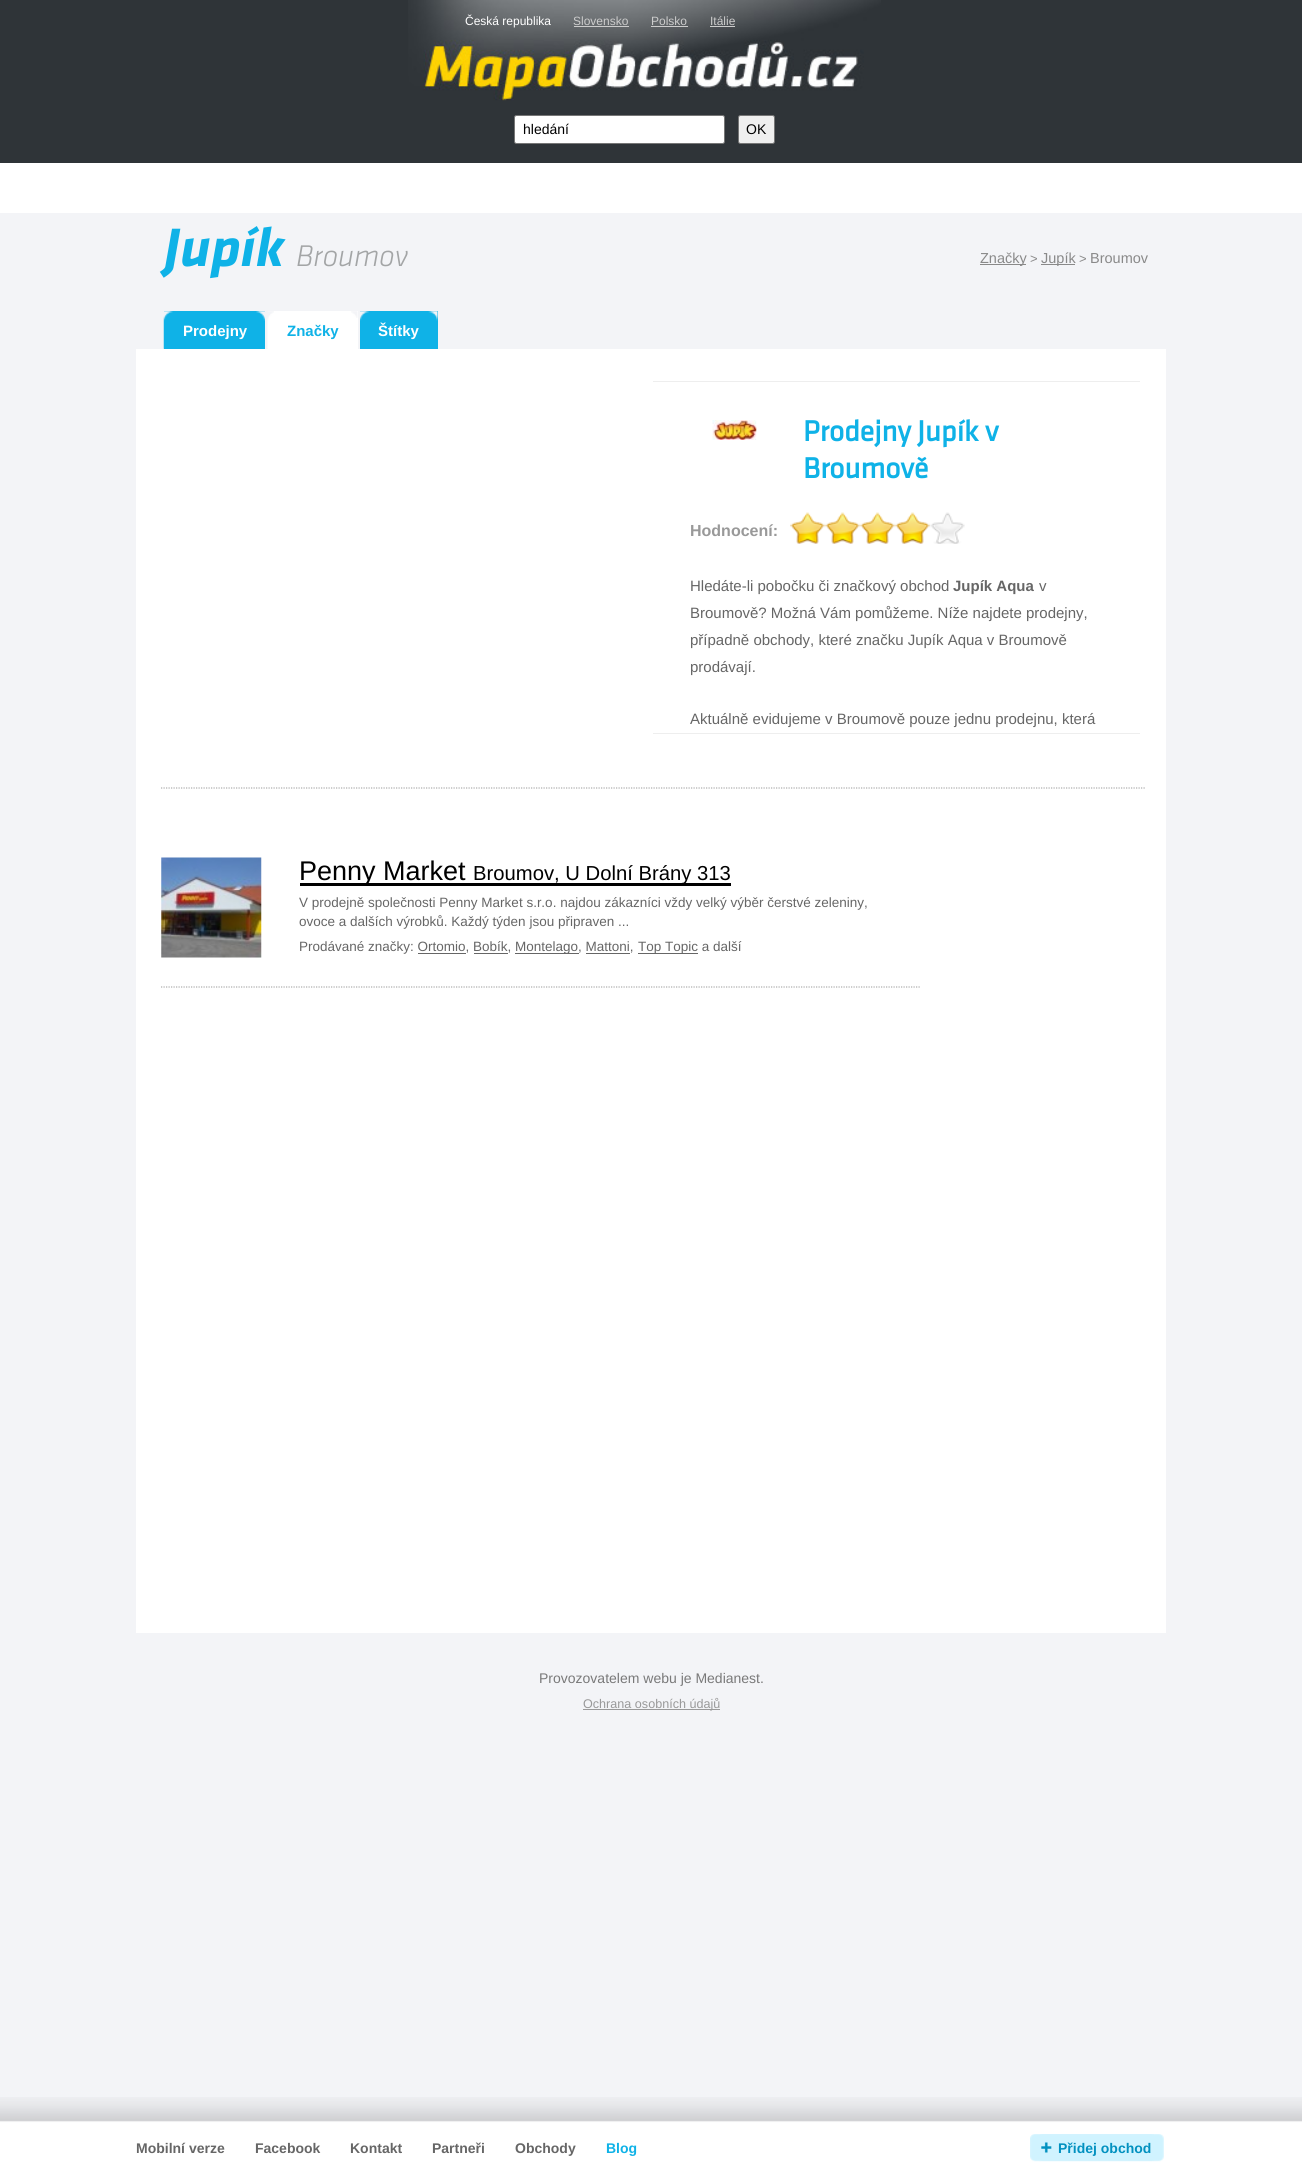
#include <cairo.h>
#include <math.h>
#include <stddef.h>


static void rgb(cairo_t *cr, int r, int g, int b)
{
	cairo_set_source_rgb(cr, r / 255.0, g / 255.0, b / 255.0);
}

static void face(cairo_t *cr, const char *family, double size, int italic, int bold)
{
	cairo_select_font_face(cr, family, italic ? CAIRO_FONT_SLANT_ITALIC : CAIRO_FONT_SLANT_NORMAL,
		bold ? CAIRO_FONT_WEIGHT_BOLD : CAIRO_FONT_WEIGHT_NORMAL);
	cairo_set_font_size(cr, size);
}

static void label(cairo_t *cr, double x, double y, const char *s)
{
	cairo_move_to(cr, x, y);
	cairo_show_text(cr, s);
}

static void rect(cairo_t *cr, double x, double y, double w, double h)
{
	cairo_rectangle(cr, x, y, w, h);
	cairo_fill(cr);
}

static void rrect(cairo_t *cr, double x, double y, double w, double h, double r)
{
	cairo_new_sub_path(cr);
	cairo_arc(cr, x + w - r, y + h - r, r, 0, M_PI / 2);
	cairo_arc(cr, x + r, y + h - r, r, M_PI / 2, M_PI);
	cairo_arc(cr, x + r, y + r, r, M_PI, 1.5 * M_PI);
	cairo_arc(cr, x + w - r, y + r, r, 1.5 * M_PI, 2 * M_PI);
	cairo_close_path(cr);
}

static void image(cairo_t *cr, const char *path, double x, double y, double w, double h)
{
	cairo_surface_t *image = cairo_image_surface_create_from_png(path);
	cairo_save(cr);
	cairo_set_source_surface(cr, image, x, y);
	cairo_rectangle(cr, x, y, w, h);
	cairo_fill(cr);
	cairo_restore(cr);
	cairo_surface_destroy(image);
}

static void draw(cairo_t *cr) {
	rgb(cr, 243, 244, 247);
	cairo_paint(cr);
	rgb(cr, 47, 52, 56);
	rect(cr, 0, 0, 1302, 163);
	image(cr, "image0.png", 408, 0, 473, 101);
	face(cr, "Liberation Sans", 12, 0, 0);
	rgb(cr, 255, 255, 255);
	label(cr, 465, 25, "Česká republika");
	rgb(cr, 204, 204, 204);
	label(cr, 573, 25, "Slovensko");
	rect(cr, 574, 26, 55, 1);
	label(cr, 651, 25, "Polsko");
	rect(cr, 651, 26, 37, 1);
	label(cr, 710, 25, "Itálie");
	rect(cr, 710, 26, 25, 1);
	rgb(cr, 255, 255, 255);
	rrect(cr, 514.5, 115.5, 210, 28, 2);
	cairo_fill_preserve(cr);
	rgb(cr, 118, 118, 118);
	cairo_set_line_width(cr, 1);
	cairo_stroke(cr);
	face(cr, "Liberation Sans", 14, 0, 0);
	rgb(cr, 0, 0, 0);
	label(cr, 523, 134, "hledání");
	rgb(cr, 239, 239, 239);
	rrect(cr, 738.5, 115.5, 36, 28, 2);
	cairo_fill_preserve(cr);
	rgb(cr, 118, 118, 118);
	cairo_stroke(cr);
	rgb(cr, 0, 0, 0);
	label(cr, 746, 134, "OK");
	rgb(cr, 255, 255, 255);
	rect(cr, 0, 163, 1302, 50);
	face(cr, "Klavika", 56, 1, 1);
	rgb(cr, 15, 178, 231);
	label(cr, 164, 266, "Jupík");
	face(cr, "Klavika Light", 31, 1, 0);
	rgb(cr, 163, 165, 166);
	label(cr, 296, 266, "Broumov");
	rgb(cr, 137, 137, 137);
	rect(cr, 980, 264, 46, 1);
	face(cr, "Liberation Sans", 14.5, 0, 0);
	label(cr, 980, 263, "Značky");
	face(cr, "Liberation Sans", 13, 0, 0);
	label(cr, 1030, 263, ">");
	rect(cr, 1041, 264, 34, 1);
	face(cr, "Liberation Sans", 14.5, 0, 0);
	label(cr, 1041, 263, "Jupík");
	face(cr, "Liberation Sans", 13, 0, 0);
	label(cr, 1079, 263, ">");
	face(cr, "Liberation Sans", 14.5, 0, 0);
	label(cr, 1090, 263, "Broumov");
	rgb(cr, 15, 178, 231);
	rect(cr, 164, 311, 101, 38);
	image(cr, "image1.png", 163, 311, 10, 38);
	image(cr, "image2.png", 256, 311, 9, 10);
	face(cr, "Liberation Sans", 15, 0, 1);
	rgb(cr, 255, 255, 255);
	label(cr, 183, 336, "Prodejny");
	rect(cr, 268, 311, 90, 38);
	image(cr, "image3.png", 267, 311, 7, 38);
	image(cr, "image4.png", 351, 311, 7, 7);
	rgb(cr, 15, 178, 231);
	label(cr, 287, 336, "Značky");
	rect(cr, 360, 311, 78, 38);
	image(cr, "image5.png", 360, 311, 9, 10);
	image(cr, "image6.png", 428, 311, 10, 10);
	rgb(cr, 255, 255, 255);
	label(cr, 378, 336, "Štítky");
	rect(cr, 136, 349, 1030, 1284);
	cairo_new_path(cr);
	cairo_move_to(cr, 161, 788);
	cairo_line_to(cr, 1145, 788);
	rgb(cr, 173, 173, 173);
	cairo_set_line_width(cr, 1.2);
	cairo_set_dash(cr, (double[]){1.25, 1.25}, 2, 0);
	cairo_stroke(cr);
	rgb(cr, 238, 238, 238);
	rect(cr, 653, 381, 487, 1);
	rect(cr, 653, 733, 487, 1);
	image(cr, "image7.png", 712, 420, 45, 20);
	face(cr, "Klavika", 30, 0, 1);
	rgb(cr, 15, 178, 231);
	label(cr, 803, 441, "Prodejny Jupík v");
	label(cr, 803, 478, "Broumově");
	face(cr, "Liberation Sans", 16, 0, 1);
	rgb(cr, 153, 153, 153);
	label(cr, 690, 536, "Hodnocení:");
	image(cr, "image8.png", 790, 512, 35, 32);
	image(cr, "image9.png", 825, 512, 35, 32);
	image(cr, "image8.png", 860, 512, 35, 32);
	image(cr, "image8.png", 895, 512, 35, 32);
	image(cr, "image10.png", 930, 512, 35, 32);
	face(cr, "Liberation Sans", 15, 0, 0);
	rgb(cr, 102, 102, 102);
	label(cr, 690, 591, "Hledáte-li pobočku či značkový obchod");
	face(cr, "Liberation Sans", 15, 0, 1);
	label(cr, 953, 591, "Jupík Aqua");
	face(cr, "Liberation Sans", 15, 0, 0);
	label(cr, 1039, 591, "v");
	label(cr, 690, 618, "Broumově? Možná Vám pomůžeme. Níže najdete prodejny,");
	label(cr, 690, 645, "případně obchody, které značku Jupík Aqua v Broumově");
	label(cr, 690, 672, "prodávají.");
	label(cr, 690, 724, "Aktuálně evidujeme v Broumově pouze jednu prodejnu, která");
	cairo_new_path(cr);
	cairo_move_to(cr, 161, 987);
	cairo_line_to(cr, 920, 987);
	rgb(cr, 173, 173, 173);
	cairo_stroke(cr);
	image(cr, "image11.png", 161, 857, 101, 101);
	rgb(cr, 0, 0, 0);
	rect(cr, 300, 883, 431, 3);
	face(cr, "Liberation Sans", 27, 0, 0);
	label(cr, 299, 880, "Penny Market");
	face(cr, "Liberation Sans", 20.25, 0, 0);
	label(cr, 473, 880, "Broumov, U Dolní Brány 313");
	face(cr, "Liberation Sans", 13.5, 0, 0);
	rgb(cr, 102, 102, 102);
	label(cr, 299, 907, "V prodejně společnosti Penny Market s.r.o. najdou zákazníci vždy velký výběr čerstvé zeleniny,");
	label(cr, 299, 926, "ovoce a dalších výrobků. Každý týden jsou připraven ...");
	label(cr, 299, 951, "Prodávané značky: Ortomio, Bobík,");
	rect(cr, 515, 953, 64, 1);
	label(cr, 515, 951, "Montelago, Mattoni,");
	rect(cr, 638, 953, 60, 1);
	label(cr, 638, 951, "Top Topic a další");
	rect(cr, 418, 953, 48, 1);
	rect(cr, 474, 953, 34, 1);
	rect(cr, 586, 953, 44, 1);
	face(cr, "Liberation Sans", 14, 0, 0);
	rgb(cr, 121, 121, 121);
	label(cr, 539, 1683, "Provozovatelem webu je Medianest.");
	rgb(cr, 153, 153, 153);
	rect(cr, 583, 1709, 137, 1);
	face(cr, "Liberation Sans", 12.6, 0, 0);
	label(cr, 583, 1708, "Ochrana osobních údajů");
	image(cr, "image12.png", 0, 2097, 1302, 74);
	face(cr, "Liberation Sans", 14, 0, 1);
	rgb(cr, 102, 102, 102);
	label(cr, 136, 2153, "Mobilní verze");
	label(cr, 255, 2153, "Facebook");
	label(cr, 350, 2153, "Kontakt");
	label(cr, 432, 2153, "Partneři");
	label(cr, 515, 2153, "Obchody");
	rgb(cr, 15, 178, 231);
	label(cr, 606, 2153, "Blog");
	image(cr, "image13.png", 1030, 2134, 134, 28);
	rgb(cr, 2, 145, 192);
	label(cr, 1058, 2153, "Přidej obchod");
}

int main(void) {
	cairo_surface_t *surface = cairo_image_surface_create(CAIRO_FORMAT_RGB24, 1302, 2171);
	cairo_t *cr = cairo_create(surface);
	cairo_font_options_t *options = cairo_font_options_create();
	cairo_font_options_set_hint_metrics(options, CAIRO_HINT_METRICS_OFF);
	cairo_font_options_set_hint_style(options, CAIRO_HINT_STYLE_NONE);
	cairo_set_font_options(cr, options);
	cairo_set_miter_limit(cr, 4);
	draw(cr);
	cairo_surface_write_to_png(surface, "render.png");
	cairo_font_options_destroy(options);
	cairo_destroy(cr);
	cairo_surface_destroy(surface);
	return 0;
}
